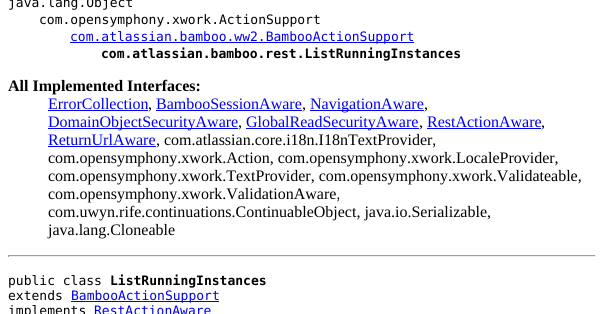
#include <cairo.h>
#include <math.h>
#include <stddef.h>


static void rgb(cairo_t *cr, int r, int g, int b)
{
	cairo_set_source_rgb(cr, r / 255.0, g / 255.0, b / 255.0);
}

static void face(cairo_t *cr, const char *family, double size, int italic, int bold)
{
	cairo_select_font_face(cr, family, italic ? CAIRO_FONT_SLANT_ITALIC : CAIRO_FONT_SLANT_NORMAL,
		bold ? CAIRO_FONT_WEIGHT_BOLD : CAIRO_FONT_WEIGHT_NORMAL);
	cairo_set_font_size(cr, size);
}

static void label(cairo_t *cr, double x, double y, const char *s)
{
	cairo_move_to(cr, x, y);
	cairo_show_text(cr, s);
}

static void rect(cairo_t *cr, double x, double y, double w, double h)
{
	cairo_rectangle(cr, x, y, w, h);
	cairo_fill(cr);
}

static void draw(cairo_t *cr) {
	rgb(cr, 255, 255, 255);
	cairo_paint(cr);
	face(cr, "DejaVu Sans Mono", 13, 0, 0);
	rgb(cr, 0, 0, 0);
	label(cr, 8, 7, "java.lang.Object");
	label(cr, 39, 24, "com.opensymphony.xwork.ActionSupport");
	rgb(cr, 0, 0, 238);
	rect(cr, 70, 42, 344, 1);
	label(cr, 70, 41, "com.atlassian.bamboo.ww2.BambooActionSupport");
	face(cr, "DejaVu Sans Mono", 13, 0, 1);
	rgb(cr, 0, 0, 0);
	label(cr, 101, 58, "com.atlassian.bamboo.rest.ListRunningInstances");
	face(cr, "Liberation Serif", 16, 0, 1);
	label(cr, 8, 91, "All Implemented Interfaces:");
	face(cr, "Liberation Serif", 16, 0, 0);
	rgb(cr, 0, 0, 238);
	label(cr, 48, 109, "ErrorCollection");
	rect(cr, 48, 110, 100, 1);
	rgb(cr, 0, 0, 0);
	label(cr, 148, 109, ",");
	rgb(cr, 0, 0, 238);
	label(cr, 156, 109, "BambooSessionAware");
	rect(cr, 156, 110, 146, 1);
	rgb(cr, 0, 0, 0);
	label(cr, 302, 109, ",");
	rgb(cr, 0, 0, 238);
	rect(cr, 310, 110, 114, 1);
	label(cr, 310, 109, "NavigationAware");
	rgb(cr, 0, 0, 0);
	label(cr, 424, 109, ",");
	rgb(cr, 0, 0, 238);
	rect(cr, 48, 128, 190, 1);
	label(cr, 48, 127, "DomainObjectSecurityAware");
	rgb(cr, 0, 0, 0);
	label(cr, 238, 127, ",");
	rgb(cr, 0, 0, 238);
	rect(cr, 246, 128, 173, 1);
	label(cr, 246, 127, "GlobalReadSecurityAware");
	rgb(cr, 0, 0, 0);
	label(cr, 419, 127, ",");
	rgb(cr, 0, 0, 238);
	label(cr, 427, 127, "RestActionAware");
	rect(cr, 427, 128, 114, 1);
	rgb(cr, 0, 0, 0);
	label(cr, 541, 127, ",");
	rgb(cr, 0, 0, 238);
	label(cr, 48, 145, "ReturnUrlAware");
	rect(cr, 48, 146, 108, 1);
	rgb(cr, 0, 0, 0);
	label(cr, 156, 145, ", com.atlassian.core.i18n.I18nTextProvider,");
	label(cr, 48, 163, "com.opensymphony.xwork.Action, com.opensymphony.xwork.LocaleProvider,");
	label(cr, 48, 181, "com.opensymphony.xwork.TextProvider, com.opensymphony.xwork.Validateable,");
	label(cr, 48, 199, "com.opensymphony.xwork.ValidationAware,");
	label(cr, 48, 217, "com.uwyn.rife.continuations.ContinuableObject, java.io.Serializable,");
	label(cr, 48, 235, "java.lang.Cloneable");
	rgb(cr, 159, 159, 159);
	rect(cr, 8, 255, 588, 1);
	rgb(cr, 238, 238, 238);
	rect(cr, 595, 255, 1, 2);
	rect(cr, 8, 256, 588, 1);
	rgb(cr, 159, 159, 159);
	rect(cr, 8, 255, 1, 2);
	face(cr, "DejaVu Sans Mono", 13, 0, 0);
	rgb(cr, 0, 0, 0);
	label(cr, 8, 285, "public class");
	face(cr, "DejaVu Sans Mono", 13, 0, 1);
	label(cr, 110, 285, "ListRunningInstances");
	face(cr, "DejaVu Sans Mono", 13, 0, 0);
	label(cr, 8, 300, "extends");
	rgb(cr, 0, 0, 238);
	rect(cr, 71, 301, 148, 1);
	label(cr, 71, 300, "BambooActionSupport");
	rgb(cr, 0, 0, 0);
	label(cr, 8, 315, "implements");
	rgb(cr, 0, 0, 238);
	label(cr, 94, 315, "RestActionAware");
}

int main(void) {
	cairo_surface_t *surface = cairo_image_surface_create(CAIRO_FORMAT_RGB24, 604, 314);
	cairo_t *cr = cairo_create(surface);
	cairo_font_options_t *options = cairo_font_options_create();
	cairo_font_options_set_hint_metrics(options, CAIRO_HINT_METRICS_OFF);
	cairo_font_options_set_hint_style(options, CAIRO_HINT_STYLE_NONE);
	cairo_set_font_options(cr, options);
	cairo_set_miter_limit(cr, 4);
	draw(cr);
	cairo_surface_write_to_png(surface, "render.png");
	cairo_font_options_destroy(options);
	cairo_destroy(cr);
	cairo_surface_destroy(surface);
	return 0;
}
